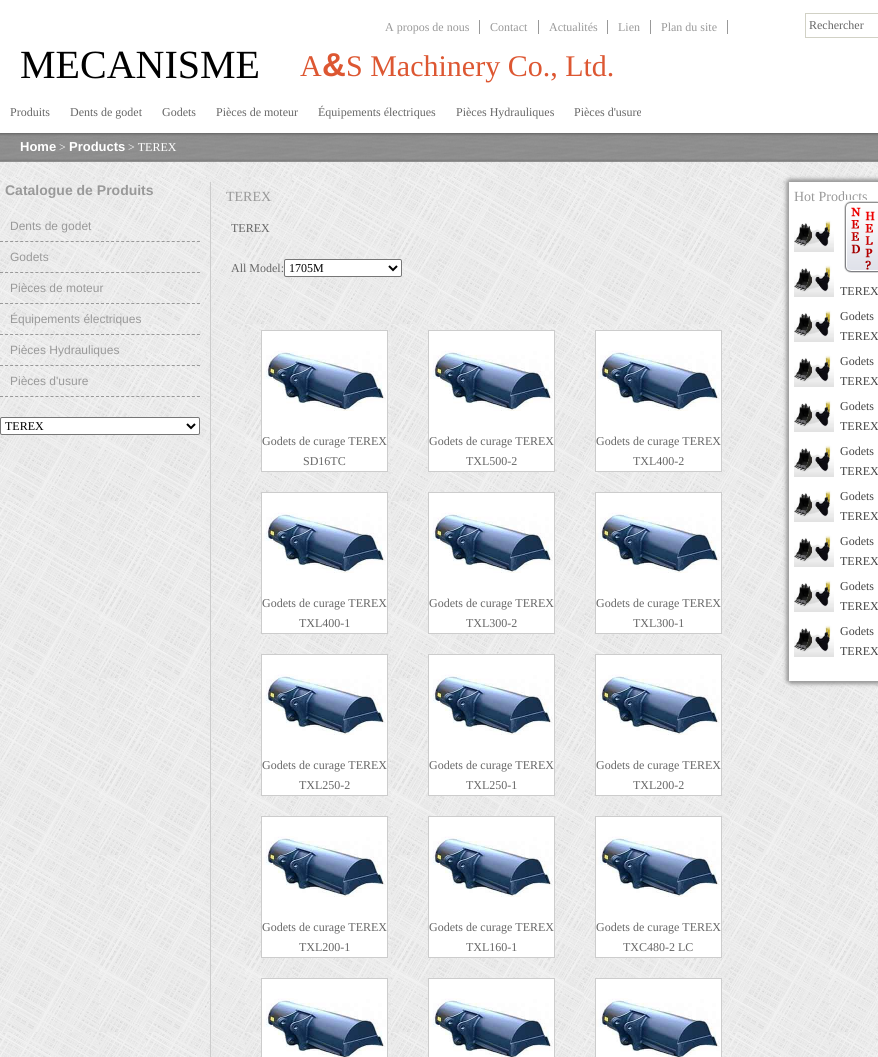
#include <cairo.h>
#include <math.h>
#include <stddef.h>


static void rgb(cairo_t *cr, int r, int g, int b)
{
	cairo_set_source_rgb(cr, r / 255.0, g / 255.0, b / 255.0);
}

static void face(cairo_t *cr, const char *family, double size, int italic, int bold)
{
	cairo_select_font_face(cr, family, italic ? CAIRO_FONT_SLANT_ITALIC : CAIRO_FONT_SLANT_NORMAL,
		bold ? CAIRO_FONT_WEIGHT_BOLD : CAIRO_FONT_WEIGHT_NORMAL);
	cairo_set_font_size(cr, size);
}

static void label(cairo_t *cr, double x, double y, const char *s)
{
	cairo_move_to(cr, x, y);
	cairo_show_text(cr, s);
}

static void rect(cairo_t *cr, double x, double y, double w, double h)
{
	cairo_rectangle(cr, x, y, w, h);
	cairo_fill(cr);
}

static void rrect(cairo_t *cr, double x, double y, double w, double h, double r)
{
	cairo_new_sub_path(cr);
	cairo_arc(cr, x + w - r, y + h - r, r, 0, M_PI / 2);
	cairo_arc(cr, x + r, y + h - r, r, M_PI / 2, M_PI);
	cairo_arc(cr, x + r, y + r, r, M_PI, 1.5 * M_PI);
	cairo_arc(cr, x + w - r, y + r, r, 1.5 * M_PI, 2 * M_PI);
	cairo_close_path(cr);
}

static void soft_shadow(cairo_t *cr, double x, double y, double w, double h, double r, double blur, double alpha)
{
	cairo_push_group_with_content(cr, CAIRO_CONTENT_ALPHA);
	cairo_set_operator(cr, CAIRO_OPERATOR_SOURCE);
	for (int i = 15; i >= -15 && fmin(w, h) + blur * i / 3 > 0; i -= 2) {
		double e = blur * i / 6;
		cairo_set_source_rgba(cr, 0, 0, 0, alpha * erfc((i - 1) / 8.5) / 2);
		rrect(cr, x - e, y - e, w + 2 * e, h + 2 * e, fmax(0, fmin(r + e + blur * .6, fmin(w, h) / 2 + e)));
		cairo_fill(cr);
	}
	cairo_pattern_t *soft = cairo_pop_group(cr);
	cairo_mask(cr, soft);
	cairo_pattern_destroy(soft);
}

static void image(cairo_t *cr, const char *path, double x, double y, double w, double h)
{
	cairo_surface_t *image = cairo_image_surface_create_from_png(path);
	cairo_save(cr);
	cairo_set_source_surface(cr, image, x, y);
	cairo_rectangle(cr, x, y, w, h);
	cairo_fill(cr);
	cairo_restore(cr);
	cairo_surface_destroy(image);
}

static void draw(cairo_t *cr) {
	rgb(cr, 255, 255, 255);
	cairo_paint(cr);
	image(cr, "image0.png", 0, 162, 878, 895);
	rgb(cr, 153, 153, 153);
	rect(cr, 479, 20, 1, 14);
	face(cr, "Liberation Serif", 12, 0, 0);
	label(cr, 385, 31, "A propos de nous");
	rect(cr, 538, 20, 1, 14);
	label(cr, 490, 31, "Contact");
	rect(cr, 607, 20, 1, 14);
	label(cr, 549, 31, "Actualités");
	rect(cr, 650, 20, 1, 14);
	label(cr, 618, 31, "Lien");
	rect(cr, 727, 20, 1, 14);
	label(cr, 661, 31, "Plan du site");
	rgb(cr, 209, 209, 197);
	rect(cr, 805, 13, 73, 1);
	rect(cr, 805, 37, 73, 1);
	rect(cr, 805, 13, 1, 25);
	rgb(cr, 102, 102, 102);
	label(cr, 809, 29, "Rechercher");
	face(cr, "Liberation Serif", 40, 0, 0);
	rgb(cr, 0, 0, 0);
	label(cr, 20, 78, "MECANISME");
	face(cr, "Liberation Serif", 30, 0, 0);
	rgb(cr, 221, 87, 50);
	label(cr, 300, 76, "A");
	face(cr, "Liberation Sans", 33, 0, 1);
	label(cr, 322, 76, "&");
	face(cr, "Liberation Serif", 30, 0, 0);
	label(cr, 346, 76, "S Machinery Co., Ltd.");
	face(cr, "Liberation Serif", 12, 0, 0);
	rgb(cr, 102, 102, 102);
	label(cr, 10, 116, "Produits");
	label(cr, 70, 116, "Dents de godet");
	label(cr, 162, 116, "Godets");
	label(cr, 216, 116, "Pièces de moteur");
	label(cr, 318, 116, "Équipements électriques");
	label(cr, 456, 116, "Pièces Hydrauliques");
	label(cr, 574, 116, "Pièces d'usure");
	image(cr, "image4.png", 0, 133, 878, 29);
	face(cr, "Liberation Sans", 13, 0, 1);
	rgb(cr, 255, 255, 255);
	label(cr, 20, 151, "Home");
	face(cr, "Liberation Serif", 12, 0, 0);
	label(cr, 59, 151, ">");
	face(cr, "Liberation Sans", 13, 0, 1);
	label(cr, 69, 151, "Products");
	face(cr, "Liberation Serif", 12, 0, 0);
	label(cr, 128, 151, "> TEREX");
	face(cr, "Liberation Sans", 14, 0, 1);
	rgb(cr, 153, 153, 153);
	label(cr, 5, 195, "Catalogue de Produits");
	cairo_new_path(cr);
	cairo_move_to(cr, 0, 241.5);
	cairo_line_to(cr, 200, 241.5);
	cairo_set_line_width(cr, 1);
	cairo_set_dash(cr, (double[]){3, 2.05}, 2, 0);
	cairo_stroke(cr);
	face(cr, "Liberation Sans", 12, 0, 0);
	label(cr, 10, 230, "Dents de godet");
	cairo_new_path(cr);
	cairo_move_to(cr, 0, 272.5);
	cairo_line_to(cr, 200, 272.5);
	cairo_stroke(cr);
	label(cr, 10, 261, "Godets");
	cairo_new_path(cr);
	cairo_move_to(cr, 0, 303.5);
	cairo_line_to(cr, 200, 303.5);
	cairo_stroke(cr);
	label(cr, 10, 292, "Pièces de moteur");
	cairo_new_path(cr);
	cairo_move_to(cr, 0, 334.5);
	cairo_line_to(cr, 200, 334.5);
	cairo_stroke(cr);
	label(cr, 10, 323, "Équipements électriques");
	cairo_new_path(cr);
	cairo_move_to(cr, 0, 365.5);
	cairo_line_to(cr, 200, 365.5);
	cairo_stroke(cr);
	label(cr, 10, 354, "Pièces Hydrauliques");
	cairo_new_path(cr);
	cairo_move_to(cr, 0, 396.5);
	cairo_line_to(cr, 200, 396.5);
	cairo_stroke(cr);
	label(cr, 10, 385, "Pièces d'usure");
	rgb(cr, 255, 255, 255);
	rrect(cr, 0.5, 417.5, 199, 17, 1.5);
	cairo_fill_preserve(cr);
	rgb(cr, 118, 118, 118);
	cairo_set_dash(cr, NULL, 0, 0);
	cairo_stroke(cr);
	cairo_new_path(cr);
	cairo_move_to(cr, 187, 424);
	cairo_line_to(cr, 191, 428);
	cairo_line_to(cr, 195, 424);
	rgb(cr, 0, 0, 0);
	cairo_set_line_width(cr, 2);
	cairo_stroke(cr);
	face(cr, "Liberation Serif", 12, 0, 0);
	label(cr, 5, 430, "TEREX");
	rgb(cr, 204, 204, 204);
	rect(cr, 210, 182, 1, 875);
	face(cr, "Liberation Serif", 14, 0, 0);
	rgb(cr, 153, 153, 153);
	label(cr, 226, 201, "TEREX");
	face(cr, "Liberation Serif", 12, 0, 0);
	rgb(cr, 102, 102, 102);
	label(cr, 231, 232, "TEREX");
	label(cr, 231, 272, "All Model:");
	rgb(cr, 255, 255, 255);
	rrect(cr, 284.5, 259.5, 117, 17, 1.5);
	cairo_fill_preserve(cr);
	rgb(cr, 118, 118, 118);
	cairo_set_line_width(cr, 1);
	cairo_stroke(cr);
	cairo_new_path(cr);
	cairo_move_to(cr, 389, 266);
	cairo_line_to(cr, 393, 270);
	cairo_line_to(cr, 397, 266);
	rgb(cr, 0, 0, 0);
	cairo_set_line_width(cr, 2);
	cairo_stroke(cr);
	label(cr, 289, 272, "1705M");
	rgb(cr, 255, 255, 255);
	cairo_rectangle(cr, 261.5, 330.5, 126, 141);
	cairo_fill_preserve(cr);
	rgb(cr, 204, 204, 204);
	cairo_set_line_width(cr, 1);
	cairo_stroke(cr);
	image(cr, "image1.png", 262, 350, 124, 61);
	rgb(cr, 102, 102, 102);
	label(cr, 262, 445, "Godets de curage TEREX");
	label(cr, 303, 465, "SD16TC");
	rgb(cr, 255, 255, 255);
	cairo_rectangle(cr, 428.5, 330.5, 126, 141);
	cairo_fill_preserve(cr);
	rgb(cr, 204, 204, 204);
	cairo_stroke(cr);
	image(cr, "image1.png", 429, 350, 124, 61);
	rgb(cr, 102, 102, 102);
	label(cr, 429, 445, "Godets de curage TEREX");
	label(cr, 466, 465, "TXL500-2");
	rgb(cr, 255, 255, 255);
	cairo_rectangle(cr, 595.5, 330.5, 126, 141);
	cairo_fill_preserve(cr);
	rgb(cr, 204, 204, 204);
	cairo_stroke(cr);
	image(cr, "image1.png", 596, 350, 124, 61);
	rgb(cr, 102, 102, 102);
	label(cr, 596, 445, "Godets de curage TEREX");
	label(cr, 633, 465, "TXL400-2");
	rgb(cr, 255, 255, 255);
	cairo_rectangle(cr, 261.5, 492.5, 126, 141);
	cairo_fill_preserve(cr);
	rgb(cr, 204, 204, 204);
	cairo_stroke(cr);
	image(cr, "image1.png", 262, 512, 124, 61);
	rgb(cr, 102, 102, 102);
	label(cr, 262, 607, "Godets de curage TEREX");
	label(cr, 299, 627, "TXL400-1");
	rgb(cr, 255, 255, 255);
	cairo_rectangle(cr, 428.5, 492.5, 126, 141);
	cairo_fill_preserve(cr);
	rgb(cr, 204, 204, 204);
	cairo_stroke(cr);
	image(cr, "image1.png", 429, 512, 124, 61);
	rgb(cr, 102, 102, 102);
	label(cr, 429, 607, "Godets de curage TEREX");
	label(cr, 466, 627, "TXL300-2");
	rgb(cr, 255, 255, 255);
	cairo_rectangle(cr, 595.5, 492.5, 126, 141);
	cairo_fill_preserve(cr);
	rgb(cr, 204, 204, 204);
	cairo_stroke(cr);
	image(cr, "image1.png", 596, 512, 124, 61);
	rgb(cr, 102, 102, 102);
	label(cr, 596, 607, "Godets de curage TEREX");
	label(cr, 633, 627, "TXL300-1");
	rgb(cr, 255, 255, 255);
	cairo_rectangle(cr, 261.5, 654.5, 126, 141);
	cairo_fill_preserve(cr);
	rgb(cr, 204, 204, 204);
	cairo_stroke(cr);
	image(cr, "image1.png", 262, 674, 124, 61);
	rgb(cr, 102, 102, 102);
	label(cr, 262, 769, "Godets de curage TEREX");
	label(cr, 299, 789, "TXL250-2");
	rgb(cr, 255, 255, 255);
	cairo_rectangle(cr, 428.5, 654.5, 126, 141);
	cairo_fill_preserve(cr);
	rgb(cr, 204, 204, 204);
	cairo_stroke(cr);
	image(cr, "image1.png", 429, 674, 124, 61);
	rgb(cr, 102, 102, 102);
	label(cr, 429, 769, "Godets de curage TEREX");
	label(cr, 466, 789, "TXL250-1");
	rgb(cr, 255, 255, 255);
	cairo_rectangle(cr, 595.5, 654.5, 126, 141);
	cairo_fill_preserve(cr);
	rgb(cr, 204, 204, 204);
	cairo_stroke(cr);
	image(cr, "image1.png", 596, 674, 124, 61);
	rgb(cr, 102, 102, 102);
	label(cr, 596, 769, "Godets de curage TEREX");
	label(cr, 633, 789, "TXL200-2");
	rgb(cr, 255, 255, 255);
	cairo_rectangle(cr, 261.5, 816.5, 126, 141);
	cairo_fill_preserve(cr);
	rgb(cr, 204, 204, 204);
	cairo_stroke(cr);
	image(cr, "image1.png", 262, 836, 124, 61);
	rgb(cr, 102, 102, 102);
	label(cr, 262, 931, "Godets de curage TEREX");
	label(cr, 299, 951, "TXL200-1");
	rgb(cr, 255, 255, 255);
	cairo_rectangle(cr, 428.5, 816.5, 126, 141);
	cairo_fill_preserve(cr);
	rgb(cr, 204, 204, 204);
	cairo_stroke(cr);
	image(cr, "image1.png", 429, 836, 124, 61);
	rgb(cr, 102, 102, 102);
	label(cr, 429, 931, "Godets de curage TEREX");
	label(cr, 466, 951, "TXL160-1");
	rgb(cr, 255, 255, 255);
	cairo_rectangle(cr, 595.5, 816.5, 126, 141);
	cairo_fill_preserve(cr);
	rgb(cr, 204, 204, 204);
	cairo_stroke(cr);
	image(cr, "image1.png", 596, 836, 124, 61);
	rgb(cr, 102, 102, 102);
	label(cr, 596, 931, "Godets de curage TEREX");
	label(cr, 623, 951, "TXC480-2 LC");
	rgb(cr, 255, 255, 255);
	cairo_rectangle(cr, 261.5, 978.5, 126, 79);
	cairo_fill_preserve(cr);
	rgb(cr, 204, 204, 204);
	cairo_stroke(cr);
	image(cr, "image2.png", 262, 998, 124, 59);
	rgb(cr, 255, 255, 255);
	cairo_rectangle(cr, 428.5, 978.5, 126, 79);
	cairo_fill_preserve(cr);
	rgb(cr, 204, 204, 204);
	cairo_stroke(cr);
	image(cr, "image2.png", 429, 998, 124, 59);
	rgb(cr, 255, 255, 255);
	cairo_rectangle(cr, 595.5, 978.5, 126, 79);
	cairo_fill_preserve(cr);
	rgb(cr, 204, 204, 204);
	cairo_stroke(cr);
	image(cr, "image2.png", 596, 998, 124, 59);
	rgb(cr, 153, 153, 153);
	soft_shadow(cr, 787, 182, 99, 499, 0, 2.5, 1);
	soft_shadow(cr, 791, 182, 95, 499, 0, 2.5, 1);
	soft_shadow(cr, 789, 180, 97, 499, 0, 2.5, 1);
	soft_shadow(cr, 791, 184, 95, 499, 0, 2.5, 1);
	rgb(cr, 255, 255, 255);
	rect(cr, 789, 182, 89, 499);
	face(cr, "Liberation Serif", 14, 0, 0);
	rgb(cr, 153, 153, 153);
	label(cr, 794, 201, "Hot Products");
	image(cr, "image3.png", 794, 220, 40, 32);
	image(cr, "image3.png", 794, 265, 40, 32);
	face(cr, "Liberation Serif", 12, 0, 0);
	rgb(cr, 68, 68, 68);
	label(cr, 840, 295, "TEREX");
	image(cr, "image3.png", 794, 310, 40, 32);
	label(cr, 840, 320, "Godets");
	label(cr, 840, 340, "TEREX");
	image(cr, "image3.png", 794, 355, 40, 32);
	label(cr, 840, 365, "Godets");
	label(cr, 840, 385, "TEREX");
	image(cr, "image3.png", 794, 400, 40, 32);
	label(cr, 840, 410, "Godets");
	label(cr, 840, 430, "TEREX");
	image(cr, "image3.png", 794, 445, 40, 32);
	label(cr, 840, 455, "Godets");
	label(cr, 840, 475, "TEREX");
	image(cr, "image3.png", 794, 490, 40, 32);
	label(cr, 840, 500, "Godets");
	label(cr, 840, 520, "TEREX");
	image(cr, "image3.png", 794, 535, 40, 32);
	label(cr, 840, 545, "Godets");
	label(cr, 840, 565, "TEREX");
	image(cr, "image3.png", 794, 580, 40, 32);
	label(cr, 840, 590, "Godets");
	label(cr, 840, 610, "TEREX");
	image(cr, "image3.png", 794, 625, 40, 32);
	label(cr, 840, 635, "Godets");
	label(cr, 840, 655, "TEREX");
	image(cr, "image5.png", 843, 200, 35, 74);
}

int main(void) {
	cairo_surface_t *surface = cairo_image_surface_create(CAIRO_FORMAT_RGB24, 878, 1057);
	cairo_t *cr = cairo_create(surface);
	cairo_font_options_t *options = cairo_font_options_create();
	cairo_font_options_set_hint_metrics(options, CAIRO_HINT_METRICS_OFF);
	cairo_font_options_set_hint_style(options, CAIRO_HINT_STYLE_NONE);
	cairo_set_font_options(cr, options);
	cairo_set_miter_limit(cr, 4);
	draw(cr);
	cairo_surface_write_to_png(surface, "render.png");
	cairo_font_options_destroy(options);
	cairo_destroy(cr);
	cairo_surface_destroy(surface);
	return 0;
}
